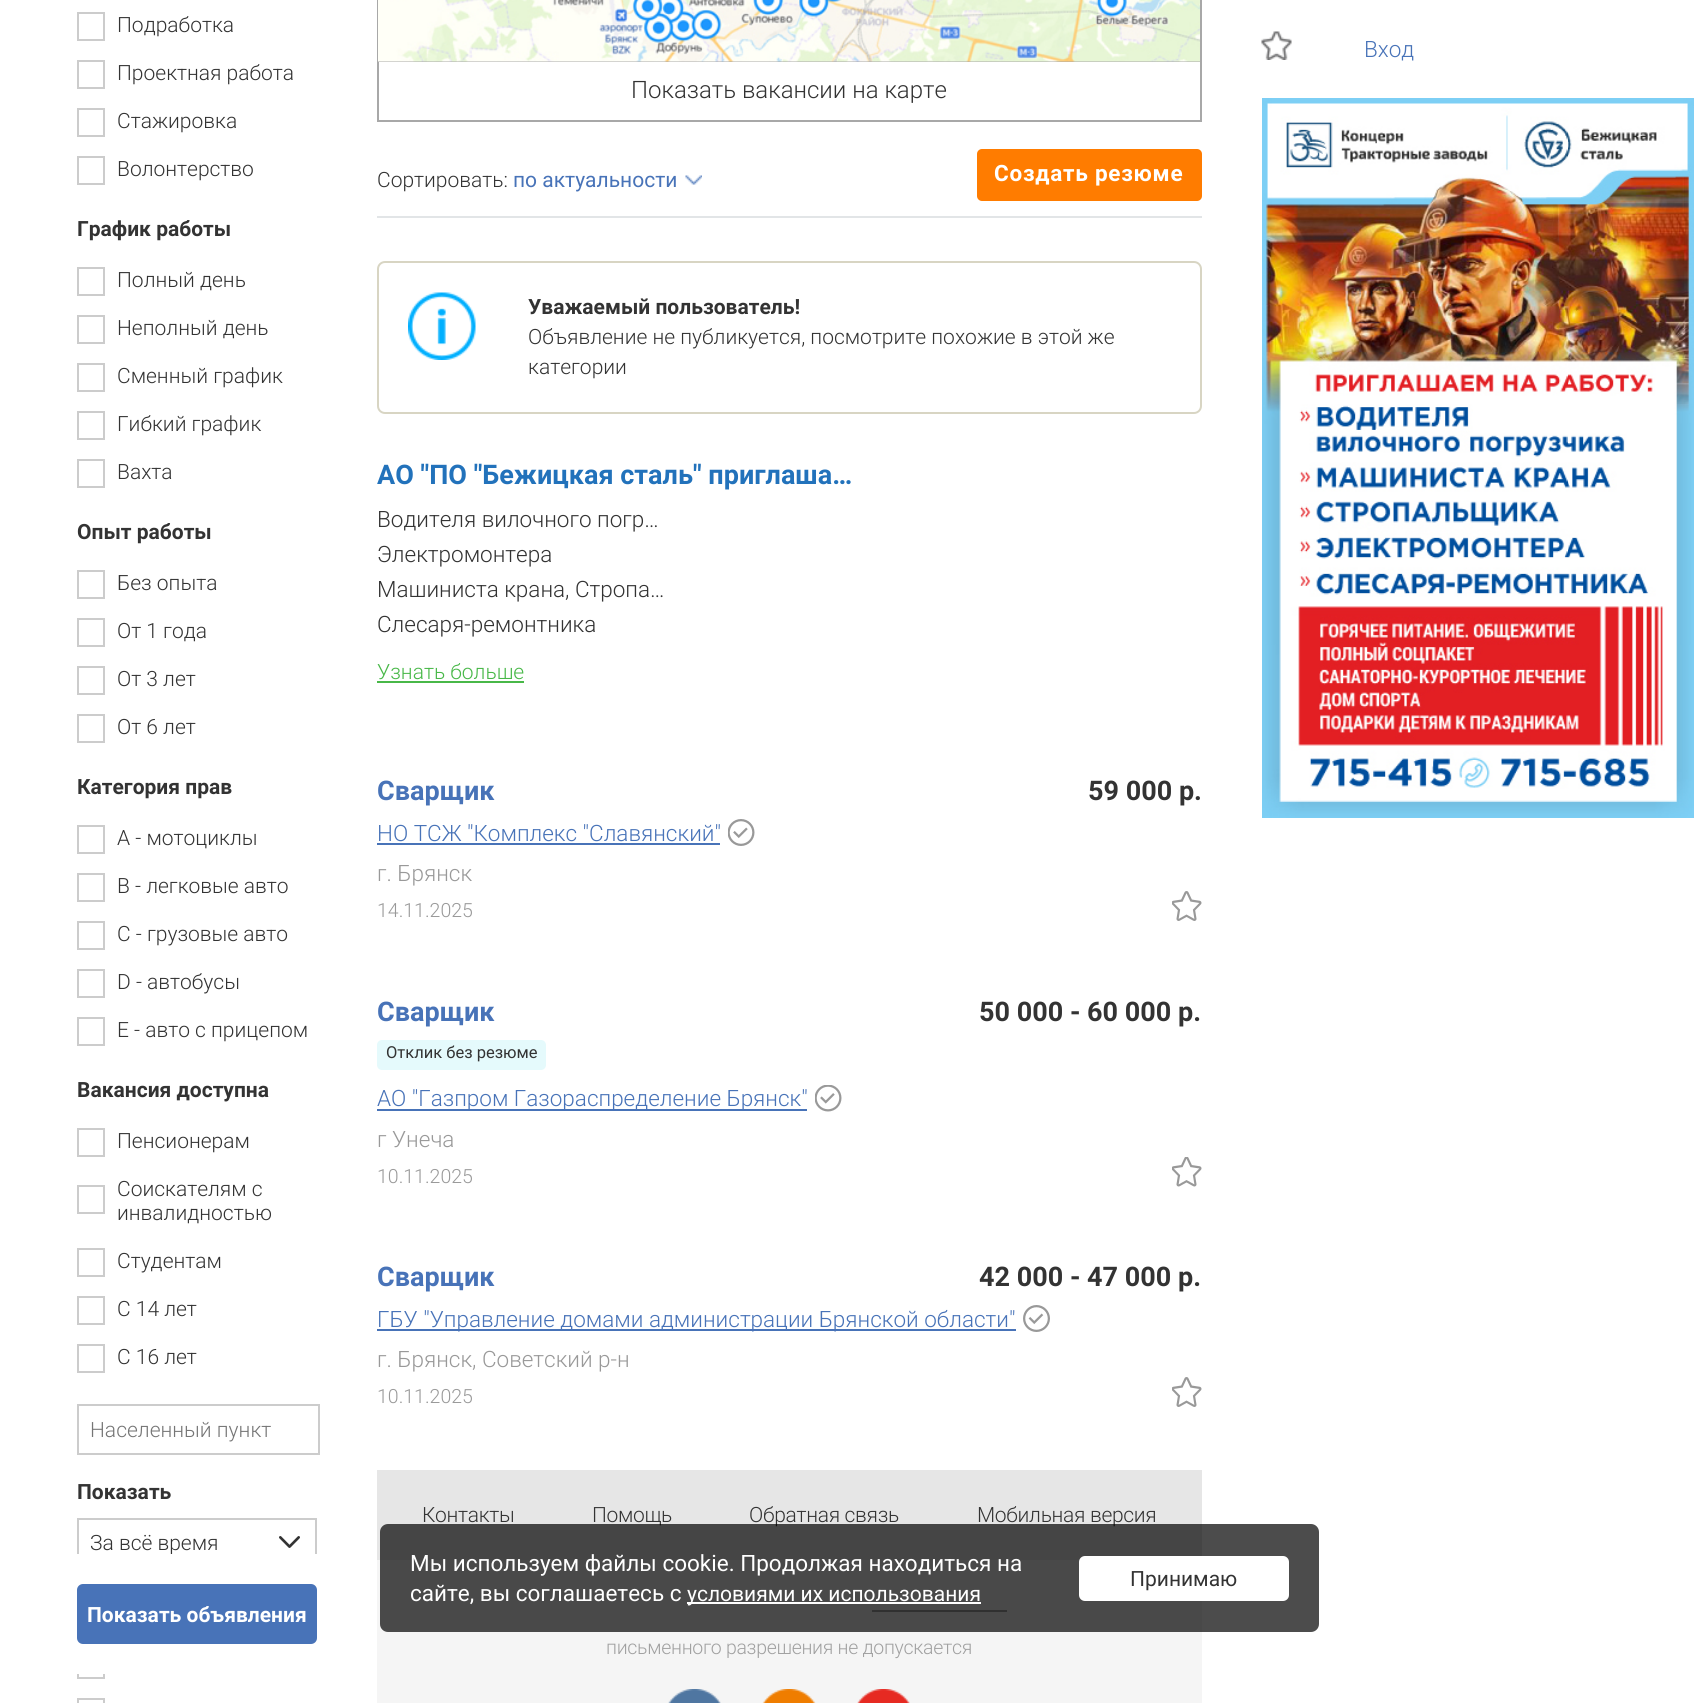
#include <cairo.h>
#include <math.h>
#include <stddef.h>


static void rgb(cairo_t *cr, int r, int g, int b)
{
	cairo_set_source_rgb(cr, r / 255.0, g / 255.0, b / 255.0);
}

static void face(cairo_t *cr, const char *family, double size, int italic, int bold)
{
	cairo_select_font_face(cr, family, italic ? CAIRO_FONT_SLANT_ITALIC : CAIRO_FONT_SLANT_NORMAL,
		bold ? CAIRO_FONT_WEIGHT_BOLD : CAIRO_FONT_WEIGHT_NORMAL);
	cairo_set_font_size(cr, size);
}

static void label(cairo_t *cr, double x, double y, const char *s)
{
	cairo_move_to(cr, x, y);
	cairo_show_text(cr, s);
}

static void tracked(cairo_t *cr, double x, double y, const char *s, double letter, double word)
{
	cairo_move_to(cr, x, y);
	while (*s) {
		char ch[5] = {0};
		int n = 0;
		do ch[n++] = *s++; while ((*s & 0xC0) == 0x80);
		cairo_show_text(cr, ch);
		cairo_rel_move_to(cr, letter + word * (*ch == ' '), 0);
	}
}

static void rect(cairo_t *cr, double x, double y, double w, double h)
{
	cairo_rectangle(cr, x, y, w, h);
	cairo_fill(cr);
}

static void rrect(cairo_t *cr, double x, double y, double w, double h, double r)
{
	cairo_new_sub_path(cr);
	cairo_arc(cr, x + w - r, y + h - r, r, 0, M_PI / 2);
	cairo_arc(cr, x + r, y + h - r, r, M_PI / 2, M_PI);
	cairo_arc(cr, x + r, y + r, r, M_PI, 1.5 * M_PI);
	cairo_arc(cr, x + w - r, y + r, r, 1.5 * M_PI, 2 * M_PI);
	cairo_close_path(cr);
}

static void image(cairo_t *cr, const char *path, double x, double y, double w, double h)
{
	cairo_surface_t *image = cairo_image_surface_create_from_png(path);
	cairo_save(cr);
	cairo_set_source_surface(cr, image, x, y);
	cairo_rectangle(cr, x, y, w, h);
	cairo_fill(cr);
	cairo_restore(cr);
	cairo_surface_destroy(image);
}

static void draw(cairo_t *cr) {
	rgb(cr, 255, 255, 255);
	cairo_paint(cr);
	cairo_rectangle(cr, 78, 13, 26, 27);
	rgb(cr, 204, 204, 204);
	cairo_stroke(cr);
	face(cr, "Roboto Light", 21, 0, 0);
	rgb(cr, 51, 51, 51);
	label(cr, 117, 32, "Подработка");
	cairo_rectangle(cr, 78, 61, 26, 27);
	rgb(cr, 204, 204, 204);
	cairo_stroke(cr);
	rgb(cr, 51, 51, 51);
	label(cr, 117, 80, "Проектная работа");
	cairo_rectangle(cr, 78, 109, 26, 27);
	rgb(cr, 204, 204, 204);
	cairo_stroke(cr);
	rgb(cr, 51, 51, 51);
	label(cr, 117, 128, "Стажировка");
	cairo_rectangle(cr, 78, 157, 26, 27);
	rgb(cr, 204, 204, 204);
	cairo_stroke(cr);
	rgb(cr, 51, 51, 51);
	label(cr, 117, 176, "Волонтерство");
	face(cr, "Roboto", 21, 0, 1);
	label(cr, 77, 236, "График работы");
	cairo_rectangle(cr, 78, 268, 26, 27);
	rgb(cr, 204, 204, 204);
	cairo_stroke(cr);
	face(cr, "Roboto Light", 21, 0, 0);
	rgb(cr, 51, 51, 51);
	label(cr, 117, 287, "Полный день");
	cairo_rectangle(cr, 78, 316, 26, 27);
	rgb(cr, 204, 204, 204);
	cairo_stroke(cr);
	rgb(cr, 51, 51, 51);
	label(cr, 117, 335, "Неполный день");
	cairo_rectangle(cr, 78, 364, 26, 27);
	rgb(cr, 204, 204, 204);
	cairo_stroke(cr);
	rgb(cr, 51, 51, 51);
	label(cr, 117, 383, "Сменный график");
	cairo_rectangle(cr, 78, 412, 26, 27);
	rgb(cr, 204, 204, 204);
	cairo_stroke(cr);
	rgb(cr, 51, 51, 51);
	label(cr, 117, 431, "Гибкий график");
	cairo_rectangle(cr, 78, 460, 26, 27);
	rgb(cr, 204, 204, 204);
	cairo_stroke(cr);
	rgb(cr, 51, 51, 51);
	label(cr, 117, 479, "Вахта");
	face(cr, "Roboto", 21, 0, 1);
	label(cr, 77, 539, "Опыт работы");
	cairo_rectangle(cr, 78, 571, 26, 27);
	rgb(cr, 204, 204, 204);
	cairo_stroke(cr);
	face(cr, "Roboto Light", 21, 0, 0);
	rgb(cr, 51, 51, 51);
	label(cr, 117, 590, "Без опыта");
	cairo_rectangle(cr, 78, 619, 26, 27);
	rgb(cr, 204, 204, 204);
	cairo_stroke(cr);
	rgb(cr, 51, 51, 51);
	label(cr, 117, 638, "От 1 года");
	cairo_rectangle(cr, 78, 667, 26, 27);
	rgb(cr, 204, 204, 204);
	cairo_stroke(cr);
	rgb(cr, 51, 51, 51);
	label(cr, 117, 686, "От 3 лет");
	cairo_rectangle(cr, 78, 715, 26, 27);
	rgb(cr, 204, 204, 204);
	cairo_stroke(cr);
	rgb(cr, 51, 51, 51);
	label(cr, 117, 734, "От 6 лет");
	face(cr, "Roboto", 21, 0, 1);
	label(cr, 77, 794, "Категория прав");
	cairo_rectangle(cr, 78, 826, 26, 27);
	rgb(cr, 204, 204, 204);
	cairo_stroke(cr);
	face(cr, "Roboto Light", 21, 0, 0);
	rgb(cr, 51, 51, 51);
	label(cr, 117, 845, "A - мотоциклы");
	cairo_rectangle(cr, 78, 874, 26, 27);
	rgb(cr, 204, 204, 204);
	cairo_stroke(cr);
	rgb(cr, 51, 51, 51);
	label(cr, 117, 893, "B - легковые авто");
	cairo_rectangle(cr, 78, 922, 26, 27);
	rgb(cr, 204, 204, 204);
	cairo_stroke(cr);
	rgb(cr, 51, 51, 51);
	label(cr, 117, 941, "С - грузовые авто");
	cairo_rectangle(cr, 78, 970, 26, 27);
	rgb(cr, 204, 204, 204);
	cairo_stroke(cr);
	rgb(cr, 51, 51, 51);
	label(cr, 117, 989, "D - автобусы");
	cairo_rectangle(cr, 78, 1018, 26, 27);
	rgb(cr, 204, 204, 204);
	cairo_stroke(cr);
	rgb(cr, 51, 51, 51);
	label(cr, 117, 1037, "E - авто с прицепом");
	face(cr, "Roboto", 21, 0, 1);
	label(cr, 77, 1097, "Вакансия доступна");
	cairo_rectangle(cr, 78, 1129, 26, 27);
	rgb(cr, 204, 204, 204);
	cairo_stroke(cr);
	face(cr, "Roboto Light", 21, 0, 0);
	rgb(cr, 51, 51, 51);
	label(cr, 117, 1148, "Пенсионерам");
	cairo_rectangle(cr, 78, 1186, 26, 27);
	rgb(cr, 204, 204, 204);
	cairo_stroke(cr);
	rgb(cr, 51, 51, 51);
	label(cr, 117, 1196, "Соискателям с");
	label(cr, 117, 1220, "инвалидностью");
	cairo_rectangle(cr, 78, 1249, 26, 27);
	rgb(cr, 204, 204, 204);
	cairo_stroke(cr);
	rgb(cr, 51, 51, 51);
	label(cr, 117, 1268, "Студентам");
	cairo_rectangle(cr, 78, 1297, 26, 27);
	rgb(cr, 204, 204, 204);
	cairo_stroke(cr);
	rgb(cr, 51, 51, 51);
	label(cr, 117, 1316, "С 14 лет");
	cairo_rectangle(cr, 78, 1345, 26, 27);
	rgb(cr, 204, 204, 204);
	cairo_stroke(cr);
	rgb(cr, 51, 51, 51);
	label(cr, 117, 1364, "С 16 лет");
	cairo_rectangle(cr, 78, 1405, 241, 49);
	rgb(cr, 204, 204, 204);
	cairo_stroke(cr);
	rgb(cr, 117, 117, 117);
	label(cr, 90, 1437, "Населенный пункт");
	face(cr, "Roboto", 21, 0, 1);
	rgb(cr, 51, 51, 51);
	label(cr, 77, 1499, "Показать");
	cairo_rectangle(cr, 78, 1519, 238, 46);
	rgb(cr, 204, 204, 204);
	cairo_stroke(cr);
	image(cr, "image0.png", 279, 1536, 21, 12);
	face(cr, "Roboto Light", 21, 0, 0);
	rgb(cr, 51, 51, 51);
	label(cr, 90, 1550, "За всё время");
	cairo_rectangle(cr, 78, 1651, 26, 27);
	rgb(cr, 204, 204, 204);
	cairo_stroke(cr);
	rgb(cr, 255, 255, 255);
	rect(cr, 77, 1554, 240, 120);
	rgb(cr, 72, 115, 184);
	rrect(cr, 77, 1584, 240, 60, 6);
	cairo_fill(cr);
	face(cr, "Roboto", 21, 0, 1);
	rgb(cr, 255, 255, 255);
	label(cr, 87, 1622, "Показать объявления");
	cairo_rectangle(cr, 78, 1699, 26, 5);
	rgb(cr, 204, 204, 204);
	cairo_stroke(cr);
	image(cr, "image1.png", 1261, 31, 31, 29);
	face(cr, "Roboto Light", 22.5, 0, 0);
	rgb(cr, 72, 115, 184);
	label(cr, 1364, 57, "Вход");
	image(cr, "image2.png", 1262, 98, 432, 720);
	cairo_rectangle(cr, 378, 61, 823, 60);
	rgb(cr, 168, 168, 168);
	cairo_stroke(cr);
	rect(cr, 1200, 0, 2, 66);
	rect(cr, 377, 0, 2, 66);
	image(cr, "image3.png", 378, 0, 822, 62);
	face(cr, "Roboto Light", 24, 0, 0);
	rgb(cr, 51, 51, 51);
	label(cr, 631, 98, "Показать вакансии на карте");
	rgb(cr, 226, 229, 231);
	rect(cr, 377, 216, 825, 2);
	face(cr, "Roboto Light", 21, 0, 0);
	rgb(cr, 51, 51, 51);
	label(cr, 377, 187, "Сортировать:");
	face(cr, "Roboto", 21, 0, 0);
	rgb(cr, 72, 115, 184);
	label(cr, 513, 187, "по актуальности");
	image(cr, "image4.png", 685, 175, 17, 10);
	rgb(cr, 255, 124, 0);
	rrect(cr, 977, 149, 225, 52, 5);
	cairo_fill(cr);
	face(cr, "Roboto", 22.5, 0, 1);
	rgb(cr, 255, 255, 255);
	tracked(cr, 994, 181, "Создать резюме", 0.75, 0);
	rrect(cr, 378, 262, 823, 151, 7);
	rgb(cr, 216, 213, 195);
	cairo_stroke(cr);
	image(cr, "image5.png", 408, 292, 68, 68);
	face(cr, "Roboto", 21, 0, 1);
	rgb(cr, 51, 51, 51);
	label(cr, 528, 314, "Уважаемый пользователь!");
	face(cr, "Roboto Light", 21, 0, 0);
	label(cr, 528, 344, "Объявление не публикуется, посмотрите похожие в этой же");
	label(cr, 528, 374, "категории");
	face(cr, "Roboto", 27, 0, 1);
	rgb(cr, 34, 114, 187);
	label(cr, 377, 484, "АО \"ПО \"Бежицкая сталь\" приглаша…");
	face(cr, "Roboto Light", 22.5, 0, 0);
	rgb(cr, 51, 51, 51);
	label(cr, 377, 527, "Водителя вилочного погр…");
	label(cr, 377, 562, "Электромонтера");
	label(cr, 377, 597, "Машиниста крана, Стропа…");
	label(cr, 377, 632, "Слесаря-ремонтника");
	face(cr, "Roboto Light", 21, 0, 0);
	rgb(cr, 72, 184, 72);
	label(cr, 377, 679, "Узнать больше");
	rect(cr, 377, 681, 147, 2);
	face(cr, "Roboto", 27, 0, 1);
	rgb(cr, 72, 115, 184);
	label(cr, 377, 800, "Сварщик");
	rgb(cr, 51, 51, 51);
	label(cr, 1088, 800, "59 000 р.");
	face(cr, "Roboto Light", 22.5, 0, 0);
	rgb(cr, 72, 115, 184);
	label(cr, 377, 841, "НО ТСЖ \"Комплекс \"Славянский\"");
	rect(cr, 377, 843, 343, 2);
	image(cr, "image6.png", 728, 819, 27, 27);
	rgb(cr, 153, 153, 153);
	label(cr, 377, 881, "г. Брянск");
	face(cr, "Roboto Light", 19.5, 0, 0);
	label(cr, 377, 917, "14.11.2025");
	image(cr, "image7.png", 1172, 891, 30, 30);
	face(cr, "Roboto", 27, 0, 1);
	rgb(cr, 72, 115, 184);
	label(cr, 377, 1021, "Сварщик");
	rgb(cr, 51, 51, 51);
	label(cr, 979, 1021, "50 000 - 60 000 р.");
	rgb(cr, 229, 250, 252);
	rrect(cr, 377, 1040, 169, 30, 5);
	cairo_fill(cr);
	face(cr, "Roboto", 16.5, 0, 0);
	rgb(cr, 51, 51, 51);
	label(cr, 386, 1058, "Отклик без резюме");
	rgb(cr, 72, 115, 184);
	rect(cr, 377, 1109, 430, 2);
	face(cr, "Roboto Light", 22.5, 0, 0);
	label(cr, 377, 1106, "АО \"Газпром Газораспределение Брянск\"");
	image(cr, "image8.png", 815, 1085, 27, 27);
	rgb(cr, 153, 153, 153);
	label(cr, 377, 1147, "г Унеча");
	face(cr, "Roboto Light", 19.5, 0, 0);
	label(cr, 377, 1183, "10.11.2025");
	image(cr, "image9.png", 1172, 1157, 30, 30);
	face(cr, "Roboto", 27, 0, 1);
	rgb(cr, 72, 115, 184);
	label(cr, 377, 1286, "Сварщик");
	rgb(cr, 51, 51, 51);
	label(cr, 979, 1286, "42 000 - 47 000 р.");
	rgb(cr, 72, 115, 184);
	rect(cr, 377, 1329, 639, 2);
	face(cr, "Roboto Light", 22.5, 0, 0);
	label(cr, 377, 1327, "ГБУ \"Управление домами администрации Брянской области\"");
	image(cr, "image10.png", 1023, 1305, 27, 27);
	rgb(cr, 153, 153, 153);
	label(cr, 377, 1367, "г. Брянск, Советский р-н");
	face(cr, "Roboto Light", 19.5, 0, 0);
	label(cr, 377, 1403, "10.11.2025");
	image(cr, "image7.png", 1172, 1377, 30, 30);
	rgb(cr, 245, 245, 245);
	rect(cr, 377, 1560, 825, 143);
	rgb(cr, 230, 230, 230);
	rect(cr, 377, 1470, 825, 90);
	face(cr, "Roboto Light", 21, 0, 0);
	rgb(cr, 51, 51, 51);
	tracked(cr, 422, 1522, "Контакты", -0.3, 0);
	tracked(cr, 592, 1522, "Помощь", -0.3, 0);
	tracked(cr, 749, 1522, "Обратная связь", -0.3, 0);
	tracked(cr, 977, 1522, "Мобильная версия", -0.3, 0);
	rgb(cr, 161, 161, 161);
	rect(cr, 872, 1610, 135, 2);
	face(cr, "Roboto Light", 19.5, 0, 0);
	tracked(cr, 606, 1654, "письменного разрешения не допускается", -0.3, 0);
	image(cr, "image11.png", 668, 1689, 53, 14);
	image(cr, "image12.png", 762, 1689, 54, 14);
	image(cr, "image13.png", 857, 1689, 53, 14);
	cairo_set_source_rgba(cr, 0, 0, 0, 0.7);
	rrect(cr, 380, 1524, 939, 108, 8);
	cairo_fill(cr);
	face(cr, "Roboto", 22.5, 0, 0);
	rgb(cr, 255, 255, 255);
	label(cr, 410, 1571, "Мы используем файлы cookie. Продолжая находиться на");
	label(cr, 410, 1601, "сайте, вы соглашаетесь с");
	rect(cr, 687, 1602, 294, 2);
	face(cr, "Roboto", 21, 0, 0);
	label(cr, 687, 1601, "условиями их использования");
	rrect(cr, 1079, 1556, 210, 45, 6);
	cairo_fill(cr);
	rgb(cr, 51, 51, 51);
	label(cr, 1130, 1586, "Принимаю");
}

int main(void) {
	cairo_surface_t *surface = cairo_image_surface_create(CAIRO_FORMAT_RGB24, 1697, 1703);
	cairo_t *cr = cairo_create(surface);
	cairo_font_options_t *options = cairo_font_options_create();
	cairo_font_options_set_hint_metrics(options, CAIRO_HINT_METRICS_OFF);
	cairo_font_options_set_hint_style(options, CAIRO_HINT_STYLE_NONE);
	cairo_set_font_options(cr, options);
	cairo_set_miter_limit(cr, 4);
	draw(cr);
	cairo_surface_write_to_png(surface, "render.png");
	cairo_font_options_destroy(options);
	cairo_destroy(cr);
	cairo_surface_destroy(surface);
	return 0;
}
